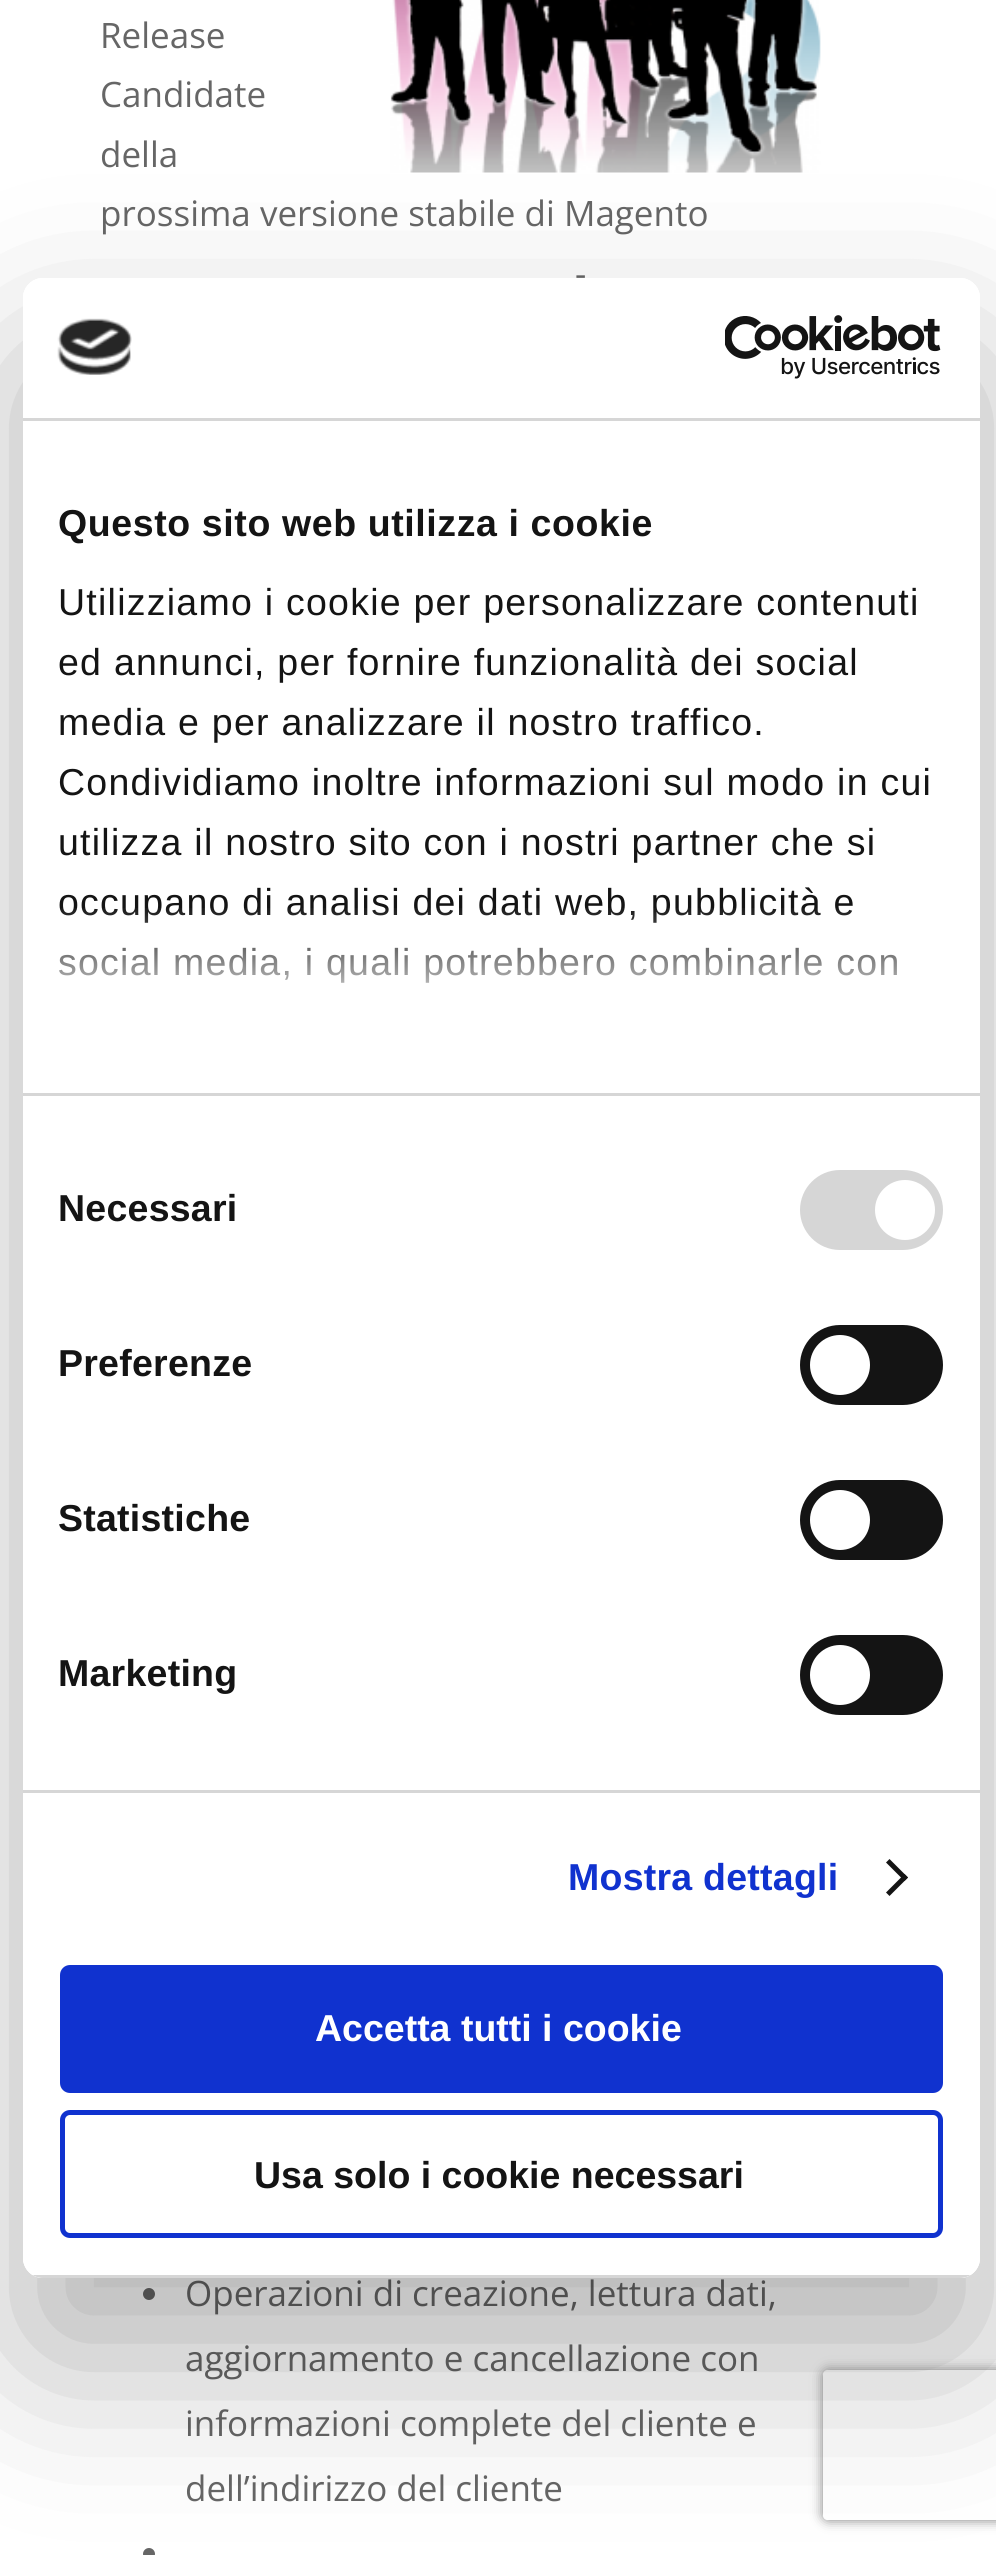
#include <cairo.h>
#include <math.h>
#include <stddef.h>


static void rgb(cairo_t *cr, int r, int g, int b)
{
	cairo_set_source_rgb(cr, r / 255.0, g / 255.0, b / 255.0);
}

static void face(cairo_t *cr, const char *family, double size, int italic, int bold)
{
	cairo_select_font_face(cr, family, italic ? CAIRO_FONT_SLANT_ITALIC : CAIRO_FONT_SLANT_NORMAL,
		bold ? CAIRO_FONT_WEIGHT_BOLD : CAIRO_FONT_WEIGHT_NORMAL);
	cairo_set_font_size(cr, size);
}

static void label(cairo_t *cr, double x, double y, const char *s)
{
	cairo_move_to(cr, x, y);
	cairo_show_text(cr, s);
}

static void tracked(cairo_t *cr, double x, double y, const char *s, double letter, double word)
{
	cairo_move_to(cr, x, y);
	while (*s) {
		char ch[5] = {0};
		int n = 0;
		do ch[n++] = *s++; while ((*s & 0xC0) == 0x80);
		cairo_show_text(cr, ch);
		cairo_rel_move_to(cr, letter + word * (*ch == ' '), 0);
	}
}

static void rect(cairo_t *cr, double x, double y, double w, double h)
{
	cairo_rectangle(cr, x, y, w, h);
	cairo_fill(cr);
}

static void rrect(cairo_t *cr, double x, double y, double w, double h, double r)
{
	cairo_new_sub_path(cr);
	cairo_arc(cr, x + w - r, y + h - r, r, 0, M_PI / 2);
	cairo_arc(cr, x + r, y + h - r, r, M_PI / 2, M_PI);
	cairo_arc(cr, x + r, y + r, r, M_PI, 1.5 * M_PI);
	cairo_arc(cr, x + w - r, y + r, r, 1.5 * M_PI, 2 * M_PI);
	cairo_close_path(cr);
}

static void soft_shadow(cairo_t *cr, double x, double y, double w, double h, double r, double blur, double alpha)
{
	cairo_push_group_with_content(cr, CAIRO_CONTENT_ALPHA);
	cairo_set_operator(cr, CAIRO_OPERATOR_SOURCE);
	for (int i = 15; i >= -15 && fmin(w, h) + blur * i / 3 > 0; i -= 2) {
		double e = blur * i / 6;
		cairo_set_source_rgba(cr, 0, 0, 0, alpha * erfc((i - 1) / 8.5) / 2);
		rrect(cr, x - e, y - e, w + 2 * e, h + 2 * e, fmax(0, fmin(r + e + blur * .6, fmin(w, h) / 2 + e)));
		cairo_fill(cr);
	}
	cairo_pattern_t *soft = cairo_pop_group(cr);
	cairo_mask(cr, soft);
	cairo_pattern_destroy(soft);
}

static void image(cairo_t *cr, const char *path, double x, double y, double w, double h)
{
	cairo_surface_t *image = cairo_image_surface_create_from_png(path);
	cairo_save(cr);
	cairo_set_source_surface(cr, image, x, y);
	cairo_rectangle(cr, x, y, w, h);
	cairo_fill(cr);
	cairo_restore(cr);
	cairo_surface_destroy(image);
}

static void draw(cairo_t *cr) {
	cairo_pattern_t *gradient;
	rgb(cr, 255, 255, 255);
	cairo_paint(cr);
	face(cr, "Open Sans", 35, 0, 0);
	rgb(cr, 102, 102, 102);
	label(cr, 100, 48, "Release");
	image(cr, "image0.png", 390, 0, 431, 173);
	label(cr, 100, 107, "Candidate");
	label(cr, 100, 167, "della");
	label(cr, 100, 226, "prossima versione stabile di Magento");
	label(cr, 575, 286, "-");
	cairo_new_path(cr);
	cairo_arc(cr, 149, 2294, 6, 0, 2 * M_PI);
	cairo_fill(cr);
	label(cr, 185, 2306, "Operazioni di creazione, lettura dati,");
	label(cr, 185, 2371, "aggiornamento e cancellazione con");
	label(cr, 185, 2436, "informazioni complete del cliente e");
	label(cr, 185, 2501, "dell’indirizzo del cliente");
	cairo_new_path(cr);
	cairo_arc(cr, 149, 2554, 6, 0, 2 * M_PI);
	cairo_fill(cr);
	cairo_save(cr);
	cairo_set_fill_rule(cr, CAIRO_FILL_RULE_EVEN_ODD);
	cairo_new_path(cr);
	cairo_move_to(cr, 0, 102);
	cairo_line_to(cr, 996, 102);
	cairo_line_to(cr, 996, 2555);
	cairo_line_to(cr, 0, 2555);
	cairo_close_path(cr);
	cairo_move_to(cr, 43, 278);
	cairo_line_to(cr, 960, 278);
	cairo_curve_to(cr, 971, 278, 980, 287, 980, 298);
	cairo_line_to(cr, 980, 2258);
	cairo_curve_to(cr, 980, 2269, 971, 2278, 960, 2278);
	cairo_line_to(cr, 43, 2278);
	cairo_curve_to(cr, 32, 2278, 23, 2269, 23, 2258);
	cairo_line_to(cr, 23, 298);
	cairo_curve_to(cr, 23, 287, 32, 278, 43, 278);
	cairo_close_path(cr);
	cairo_clip(cr);
	rgb(cr, 0, 0, 0);
	soft_shadow(cr, 23, 358, 957, 2000, 20, 85, 0.3);
	cairo_restore(cr);
	rgb(cr, 255, 255, 255);
	rrect(cr, 23, 278, 957, 2000, 20);
	cairo_fill(cr);
	rgb(cr, 214, 214, 214);
	rect(cr, 23, 418, 957, 3);
	image(cr, "image1.png", 57, 318, 75, 57);
	image(cr, "image2.png", 725, 315, 216, 64);
	rect(cr, 23, 1093, 957, 3);
	face(cr, "Liberation Sans", 37.5, 0, 1);
	rgb(cr, 20, 20, 20);
	tracked(cr, 58, 536, "Questo sito web utilizza i cookie", 0.6, 0);
	face(cr, "Liberation Sans", 37.5, 0, 0);
	tracked(cr, 58, 615, "Utilizziamo i cookie per personalizzare contenuti", 1.25, 0);
	tracked(cr, 58, 675, "ed annunci, per fornire funzionalità dei social", 1.25, 0);
	tracked(cr, 58, 735, "media e per analizzare il nostro traffico.", 1.25, 0);
	tracked(cr, 58, 795, "Condividiamo inoltre informazioni sul modo in cui", 1.25, 0);
	tracked(cr, 58, 855, "utilizza il nostro sito con i nostri partner che si", 1.25, 0);
	tracked(cr, 58, 915, "occupano di analisi dei dati web, pubblicità e", 1.25, 0);
	tracked(cr, 58, 975, "social media, i quali potrebbero combinarle con", 1.25, 0);
	gradient = cairo_pattern_create_linear(484, 1093, 484, 905);
	cairo_pattern_add_color_stop_rgba(gradient, 0, 1, 1, 1, 1);
	cairo_pattern_add_color_stop_rgba(gradient, 0.5, 1, 1, 1, 0.8);
	cairo_pattern_add_color_stop_rgba(gradient, 1, 1, 1, 1, 0);
	cairo_set_source(cr, gradient);
	cairo_pattern_destroy(gradient);
	rect(cr, 58, 908, 839, 75);
	rgb(cr, 214, 214, 214);
	rect(cr, 23, 1790, 957, 3);
	face(cr, "Liberation Sans", 37.5, 0, 1);
	rgb(cr, 20, 20, 20);
	tracked(cr, 58, 1221, "Necessari", 0.25, 0);
	rgb(cr, 214, 214, 214);
	rrect(cr, 800, 1170, 143, 80, 40);
	cairo_fill(cr);
	rgb(cr, 255, 255, 255);
	cairo_arc(cr, 905, 1210, 30, 0, 2 * M_PI);
	cairo_fill(cr);
	rgb(cr, 20, 20, 20);
	tracked(cr, 58, 1376, "Preferenze", 0.25, 0);
	rrect(cr, 800, 1325, 143, 80, 40);
	cairo_fill(cr);
	rgb(cr, 255, 255, 255);
	cairo_arc(cr, 840, 1365, 30, 0, 2 * M_PI);
	cairo_fill(cr);
	rgb(cr, 20, 20, 20);
	tracked(cr, 58, 1531, "Statistiche", 0.25, 0);
	rrect(cr, 800, 1480, 143, 80, 40);
	cairo_fill(cr);
	rgb(cr, 255, 255, 255);
	cairo_arc(cr, 840, 1520, 30, 0, 2 * M_PI);
	cairo_fill(cr);
	rgb(cr, 20, 20, 20);
	tracked(cr, 58, 1686, "Marketing", 0.25, 0);
	rrect(cr, 800, 1635, 143, 80, 40);
	cairo_fill(cr);
	rgb(cr, 255, 255, 255);
	cairo_arc(cr, 840, 1675, 30, 0, 2 * M_PI);
	cairo_fill(cr);
	rgb(cr, 16, 50, 207);
	tracked(cr, 568, 1890, "Mostra dettagli", 0.25, 0);
	rgb(cr, 20, 20, 20);
	cairo_new_path(cr);
	cairo_move_to(cr, 889.5, 1859);
	cairo_line_to(cr, 908, 1877.5);
	cairo_line_to(cr, 904.5, 1881);
	cairo_line_to(cr, 886, 1862.5);
	cairo_close_path(cr);
	cairo_fill(cr);
	cairo_new_path(cr);
	cairo_move_to(cr, 904.5, 1874);
	cairo_line_to(cr, 908, 1877.5);
	cairo_line_to(cr, 889.5, 1896);
	cairo_line_to(cr, 886, 1892.5);
	cairo_close_path(cr);
	cairo_fill(cr);
	cairo_save(cr);
	rrect(cr, 23, 278, 957, 2000, 20);
	cairo_clip(cr);
	rgb(cr, 214, 214, 214);
	rect(cr, 32, 2275, 939, 3);
	cairo_restore(cr);
	rgb(cr, 16, 50, 207);
	rrect(cr, 62.5, 1967.5, 878, 123, 7.5);
	cairo_fill_preserve(cr);
	cairo_set_line_width(cr, 5);
	cairo_stroke(cr);
	rgb(cr, 255, 255, 255);
	label(cr, 315, 2041, "Accetta tutti i cookie");
	rrect(cr, 62.5, 2112.5, 878, 123, 7.5);
	rgb(cr, 16, 50, 207);
	cairo_stroke(cr);
	rgb(cr, 20, 20, 20);
	label(cr, 254, 2188, "Usa solo i cookie necessari");
	cairo_save(cr);
	cairo_set_fill_rule(cr, CAIRO_FILL_RULE_EVEN_ODD);
	cairo_new_path(cr);
	cairo_move_to(cr, 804, 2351);
	cairo_line_to(cr, 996, 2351);
	cairo_line_to(cr, 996, 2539);
	cairo_line_to(cr, 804, 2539);
	cairo_close_path(cr);
	cairo_move_to(cr, 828, 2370);
	cairo_line_to(cr, 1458, 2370);
	cairo_curve_to(cr, 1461, 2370, 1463, 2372, 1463, 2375);
	cairo_line_to(cr, 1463, 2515);
	cairo_curve_to(cr, 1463, 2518, 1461, 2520, 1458, 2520);
	cairo_line_to(cr, 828, 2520);
	cairo_curve_to(cr, 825, 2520, 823, 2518, 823, 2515);
	cairo_line_to(cr, 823, 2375);
	cairo_curve_to(cr, 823, 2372, 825, 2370, 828, 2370);
	cairo_close_path(cr);
	cairo_clip(cr);
	rgb(cr, 128, 128, 128);
	soft_shadow(cr, 823, 2370, 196, 150, 5, 6, 1);
	cairo_restore(cr);
}

int main(void) {
	cairo_surface_t *surface = cairo_image_surface_create(CAIRO_FORMAT_RGB24, 996, 2555);
	cairo_t *cr = cairo_create(surface);
	cairo_font_options_t *options = cairo_font_options_create();
	cairo_font_options_set_hint_metrics(options, CAIRO_HINT_METRICS_OFF);
	cairo_font_options_set_hint_style(options, CAIRO_HINT_STYLE_NONE);
	cairo_set_font_options(cr, options);
	cairo_set_miter_limit(cr, 4);
	draw(cr);
	cairo_surface_write_to_png(surface, "render.png");
	cairo_font_options_destroy(options);
	cairo_destroy(cr);
	cairo_surface_destroy(surface);
	return 0;
}
